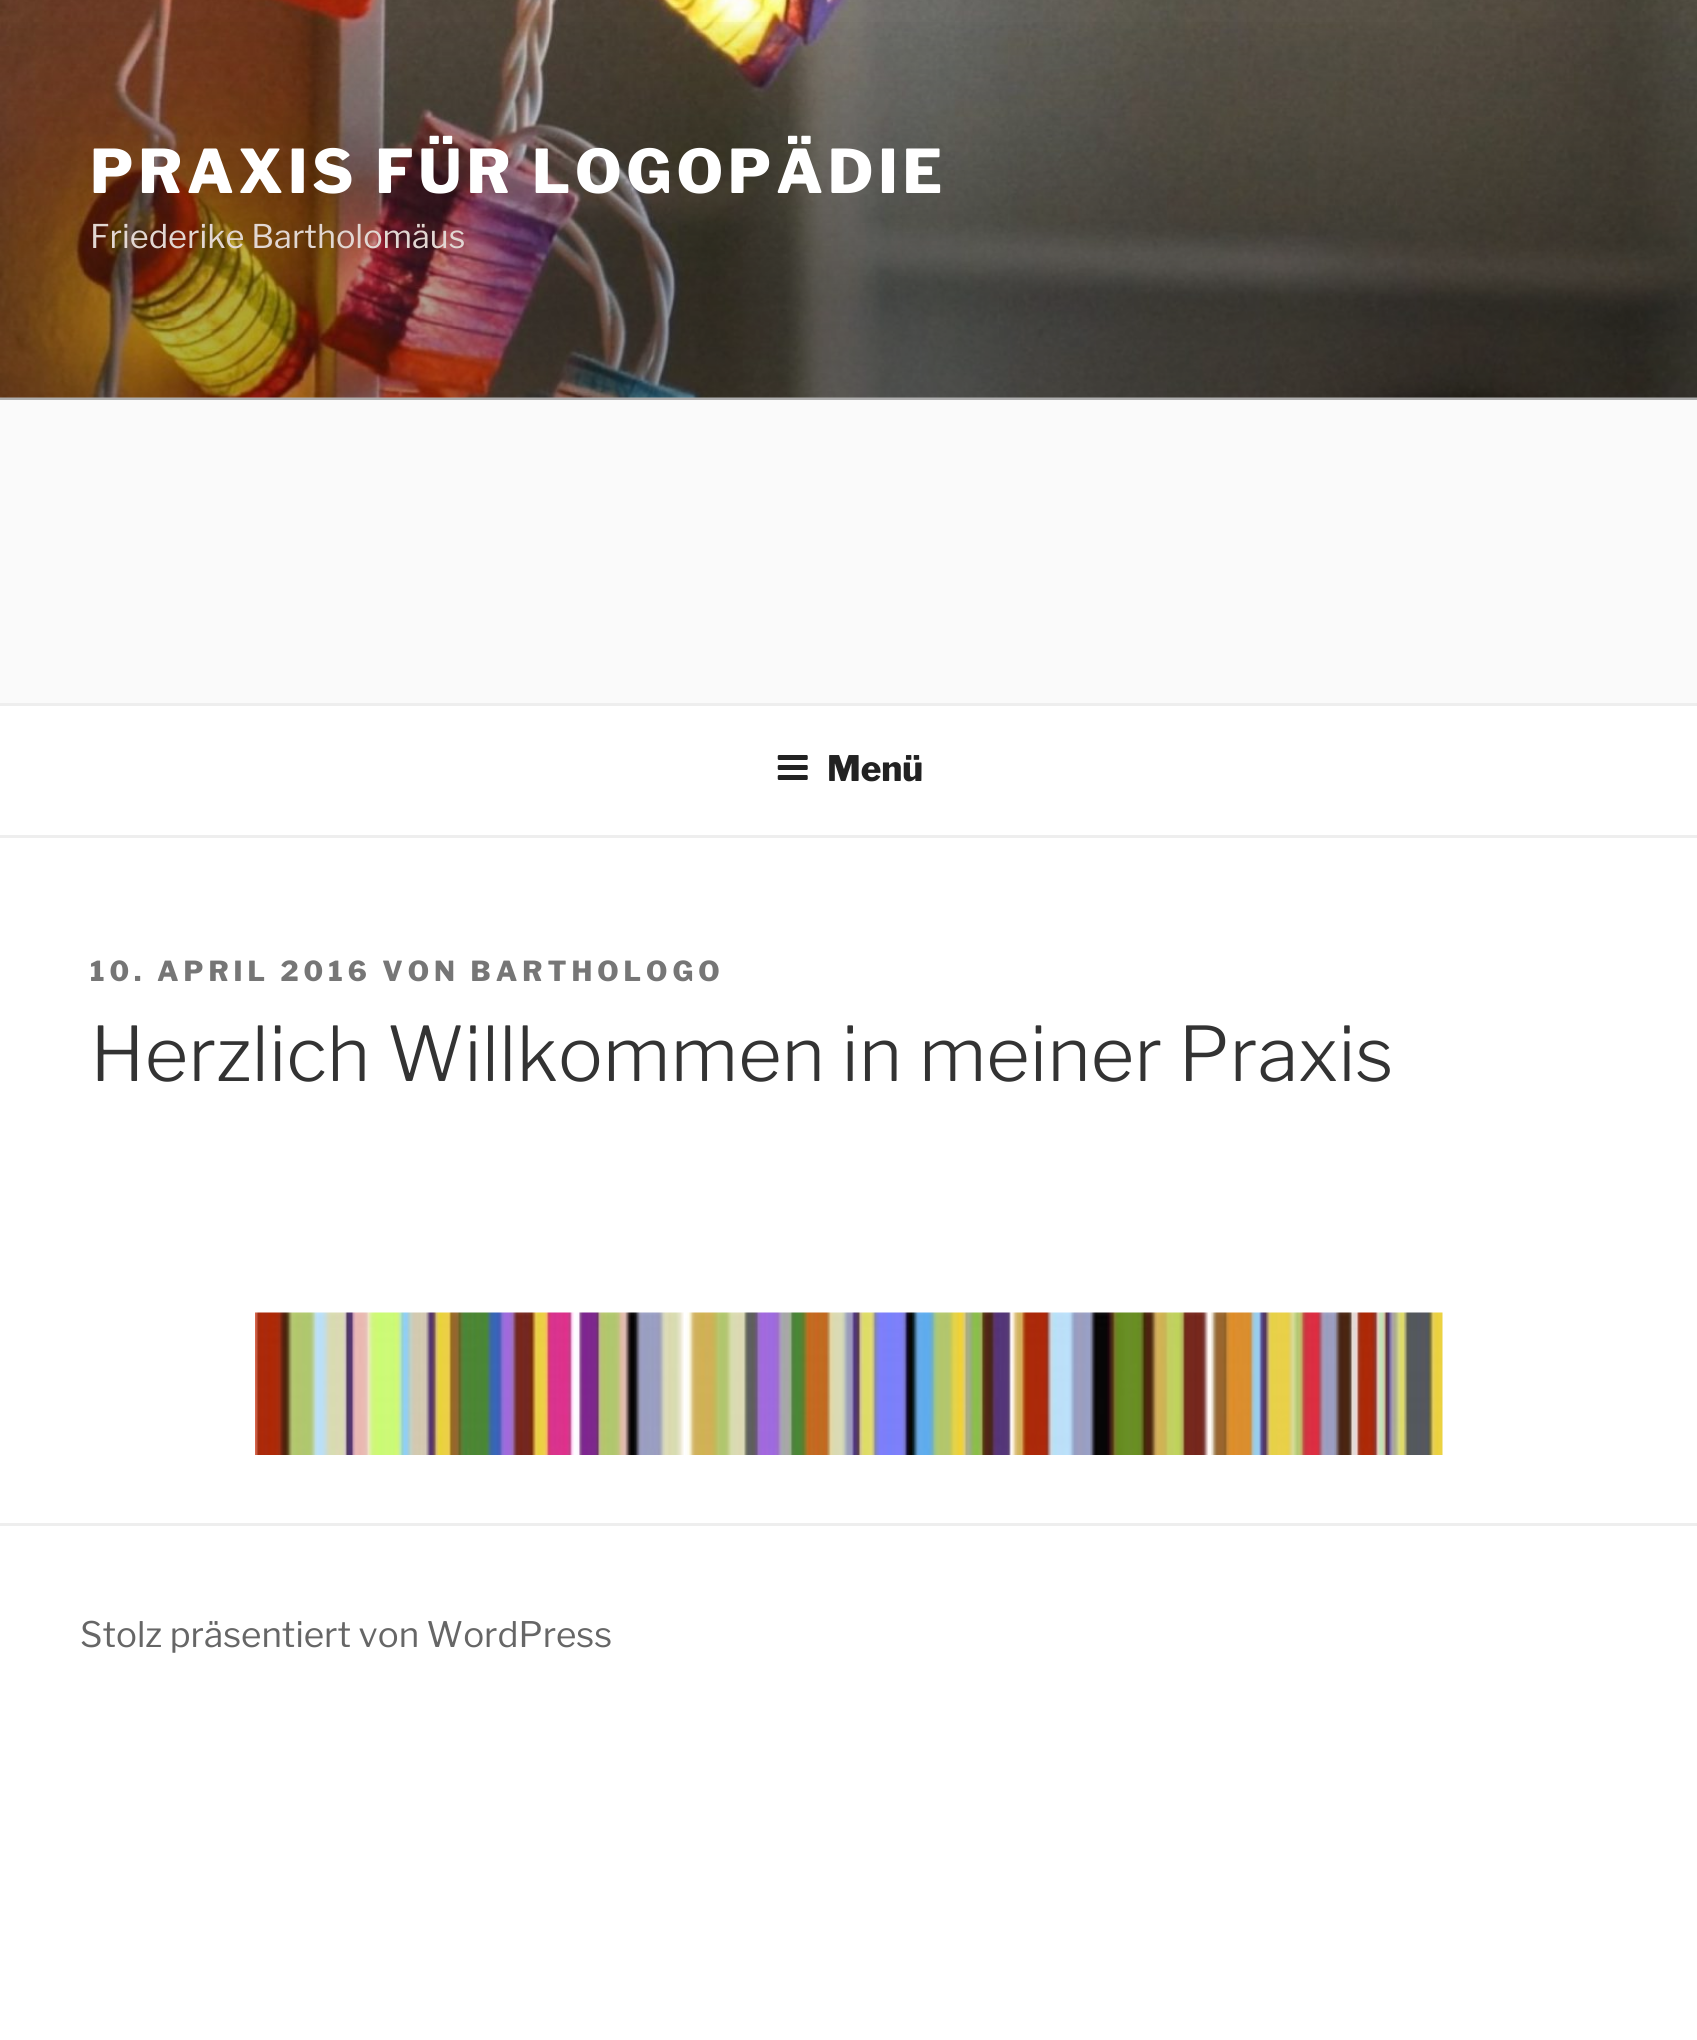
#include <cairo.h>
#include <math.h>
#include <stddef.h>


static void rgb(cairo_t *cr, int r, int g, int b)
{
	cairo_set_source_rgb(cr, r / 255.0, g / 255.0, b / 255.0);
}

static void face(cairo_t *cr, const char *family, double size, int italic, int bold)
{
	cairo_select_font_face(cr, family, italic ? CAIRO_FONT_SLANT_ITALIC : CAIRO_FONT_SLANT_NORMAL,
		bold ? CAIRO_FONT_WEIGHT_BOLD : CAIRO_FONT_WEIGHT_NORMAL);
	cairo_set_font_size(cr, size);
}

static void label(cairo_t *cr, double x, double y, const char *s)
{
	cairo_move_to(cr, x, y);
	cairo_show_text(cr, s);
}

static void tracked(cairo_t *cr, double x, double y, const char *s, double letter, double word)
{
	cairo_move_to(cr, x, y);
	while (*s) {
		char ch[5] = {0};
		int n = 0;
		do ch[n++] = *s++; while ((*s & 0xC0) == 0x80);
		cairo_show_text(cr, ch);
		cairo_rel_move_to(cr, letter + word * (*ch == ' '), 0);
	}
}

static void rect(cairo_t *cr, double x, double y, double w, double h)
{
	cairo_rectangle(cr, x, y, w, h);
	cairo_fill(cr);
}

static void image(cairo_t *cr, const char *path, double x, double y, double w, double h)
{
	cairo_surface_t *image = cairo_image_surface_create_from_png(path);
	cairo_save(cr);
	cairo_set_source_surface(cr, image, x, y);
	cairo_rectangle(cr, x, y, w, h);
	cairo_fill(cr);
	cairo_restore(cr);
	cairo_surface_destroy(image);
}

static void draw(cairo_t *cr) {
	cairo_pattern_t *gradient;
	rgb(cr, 255, 255, 255);
	cairo_paint(cr);
	rgb(cr, 250, 250, 250);
	rect(cr, 0, 397, 1697, 306);
	image(cr, "image0.png", 0, 0, 1697, 398);
	gradient = cairo_pattern_create_linear(849, 0, 849, 400);
	cairo_pattern_add_color_stop_rgba(gradient, 0, 0, 0, 0, 0);
	cairo_pattern_add_color_stop_rgba(gradient, 0.75, 0, 0, 0, 0.3);
	cairo_pattern_add_color_stop_rgba(gradient, 1, 0, 0, 0, 0.3);
	cairo_set_source(cr, gradient);
	cairo_pattern_destroy(gradient);
	rect(cr, 0, 22, 1697, 378);
	face(cr, "Libre Franklin ExtraBold", 60, 0, 0);
	rgb(cr, 255, 255, 255);
	tracked(cr, 90, 193, "PRAXIS FÜR LOGOPÄDIE", 4.75, 0);
	face(cr, "Libre Franklin", 32.5, 0, 0);
	rgb(cr, 226, 215, 210);
	label(cr, 90, 248, "Friederike Bartholomäus");
	rgb(cr, 238, 238, 238);
	rect(cr, 0, 703, 1697, 3);
	rect(cr, 0, 835, 1697, 3);
	image(cr, "image1.png", 777, 755, 31, 25);
	face(cr, "Libre Franklin ExtraBold", 35, 0, 0);
	rgb(cr, 34, 34, 34);
	label(cr, 827, 781, "Menü");
	face(cr, "Libre Franklin ExtraBold", 27.5, 0, 0);
	rgb(cr, 118, 118, 118);
	tracked(cr, 90, 981, "10. APRIL 2016 VON BARTHOLOGO", 5, 0);
	face(cr, "Libre Franklin Light", 75, 0, 0);
	rgb(cr, 51, 51, 51);
	label(cr, 90, 1081, "Herzlich Willkommen in meiner Praxis");
	image(cr, "image2.png", 255, 1312, 1188, 143);
	rgb(cr, 238, 238, 238);
	rect(cr, 0, 1523, 1697, 3);
	face(cr, "Libre Franklin", 35, 0, 0);
	rgb(cr, 102, 102, 102);
	label(cr, 80, 1647, "Stolz präsentiert von WordPress");
}

int main(void) {
	cairo_surface_t *surface = cairo_image_surface_create(CAIRO_FORMAT_RGB24, 1697, 2040);
	cairo_t *cr = cairo_create(surface);
	cairo_font_options_t *options = cairo_font_options_create();
	cairo_font_options_set_hint_metrics(options, CAIRO_HINT_METRICS_OFF);
	cairo_font_options_set_hint_style(options, CAIRO_HINT_STYLE_NONE);
	cairo_set_font_options(cr, options);
	cairo_set_miter_limit(cr, 4);
	draw(cr);
	cairo_surface_write_to_png(surface, "render.png");
	cairo_font_options_destroy(options);
	cairo_destroy(cr);
	cairo_surface_destroy(surface);
	return 0;
}
